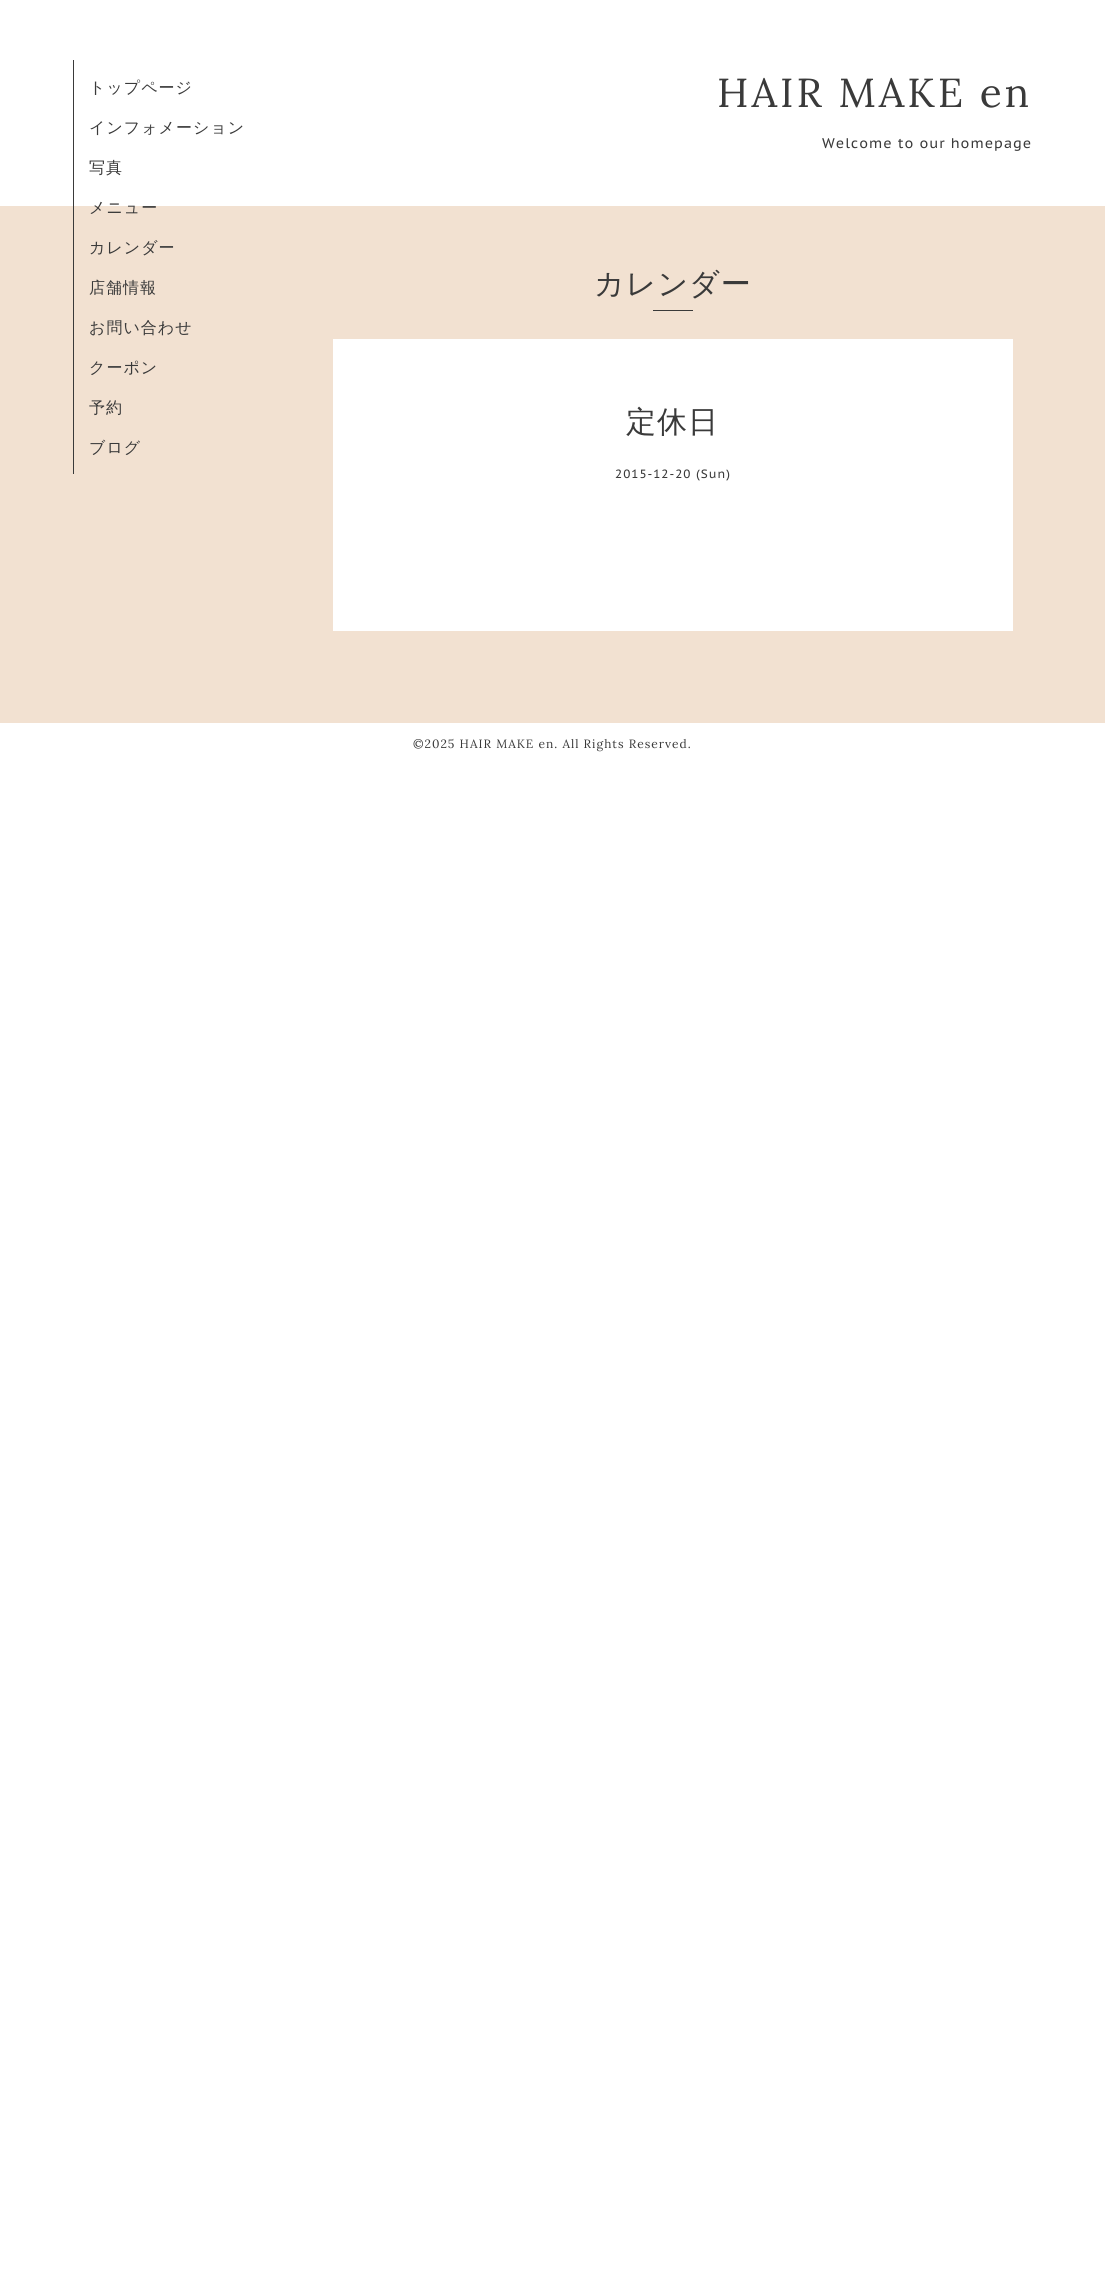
#include <cairo.h>
#include <math.h>
#include <stddef.h>


static void rgb(cairo_t *cr, int r, int g, int b)
{
	cairo_set_source_rgb(cr, r / 255.0, g / 255.0, b / 255.0);
}

static void face(cairo_t *cr, const char *family, double size, int italic, int bold)
{
	cairo_select_font_face(cr, family, italic ? CAIRO_FONT_SLANT_ITALIC : CAIRO_FONT_SLANT_NORMAL,
		bold ? CAIRO_FONT_WEIGHT_BOLD : CAIRO_FONT_WEIGHT_NORMAL);
	cairo_set_font_size(cr, size);
}

static void tracked(cairo_t *cr, double x, double y, const char *s, double letter, double word)
{
	cairo_move_to(cr, x, y);
	while (*s) {
		char ch[5] = {0};
		int n = 0;
		do ch[n++] = *s++; while ((*s & 0xC0) == 0x80);
		cairo_show_text(cr, ch);
		cairo_rel_move_to(cr, letter + word * (*ch == ' '), 0);
	}
}

static void rect(cairo_t *cr, double x, double y, double w, double h)
{
	cairo_rectangle(cr, x, y, w, h);
	cairo_fill(cr);
}

static void draw(cairo_t *cr) {
	rgb(cr, 255, 255, 255);
	cairo_paint(cr);
	rgb(cr, 242, 225, 209);
	rect(cr, 0, 206, 1105, 517);
	rgb(cr, 58, 58, 58);
	rect(cr, 73, 60, 1, 414);
	face(cr, "WenQuanYi Zen Hei Medium", 16, 0, 0);
	tracked(cr, 89, 93, "トップページ", 1, 0);
	tracked(cr, 89, 133, "インフォメーション", 1, 0);
	tracked(cr, 89, 173, "写真", 1, 0);
	tracked(cr, 89, 213, "メニュー", 1, 0);
	tracked(cr, 89, 253, "カレンダー", 1, 0);
	tracked(cr, 89, 293, "店舗情報", 1, 0);
	tracked(cr, 89, 333, "お問い合わせ", 1, 0);
	tracked(cr, 89, 373, "クーポン", 1, 0);
	tracked(cr, 89, 413, "予約", 1, 0);
	tracked(cr, 89, 453, "ブログ", 1, 0);
	face(cr, "Lora", 40.5, 0, 0);
	tracked(cr, 717, 107, "HAIR MAKE en", 3, 0);
	face(cr, "PT Sans Caption", 14, 0, 0);
	tracked(cr, 822, 148, "Welcome to our homepage", 1, 0);
	face(cr, "WenQuanYi Zen Hei Medium", 30, 0, 0);
	tracked(cr, 594, 294, "カレンダー", 1, 0);
	rect(cr, 653, 310, 40, 1);
	rgb(cr, 255, 255, 255);
	rect(cr, 333, 339, 680, 292);
	rgb(cr, 58, 58, 58);
	tracked(cr, 626, 432, "定休日", 1, 0);
	face(cr, "PT Sans Caption", 12, 0, 0);
	tracked(cr, 615, 478, "2015-12-20 (Sun)", 1, 0);
	face(cr, "Lora", 12, 0, 0);
	tracked(cr, 413, 748, "©2025 HAIR MAKE en. All Rights Reserved.", 1, 0);
}

int main(void) {
	cairo_surface_t *surface = cairo_image_surface_create(CAIRO_FORMAT_RGB24, 1105, 2294);
	cairo_t *cr = cairo_create(surface);
	cairo_font_options_t *options = cairo_font_options_create();
	cairo_font_options_set_hint_metrics(options, CAIRO_HINT_METRICS_OFF);
	cairo_font_options_set_hint_style(options, CAIRO_HINT_STYLE_NONE);
	cairo_set_font_options(cr, options);
	cairo_set_miter_limit(cr, 4);
	draw(cr);
	cairo_surface_write_to_png(surface, "render.png");
	cairo_font_options_destroy(options);
	cairo_destroy(cr);
	cairo_surface_destroy(surface);
	return 0;
}
